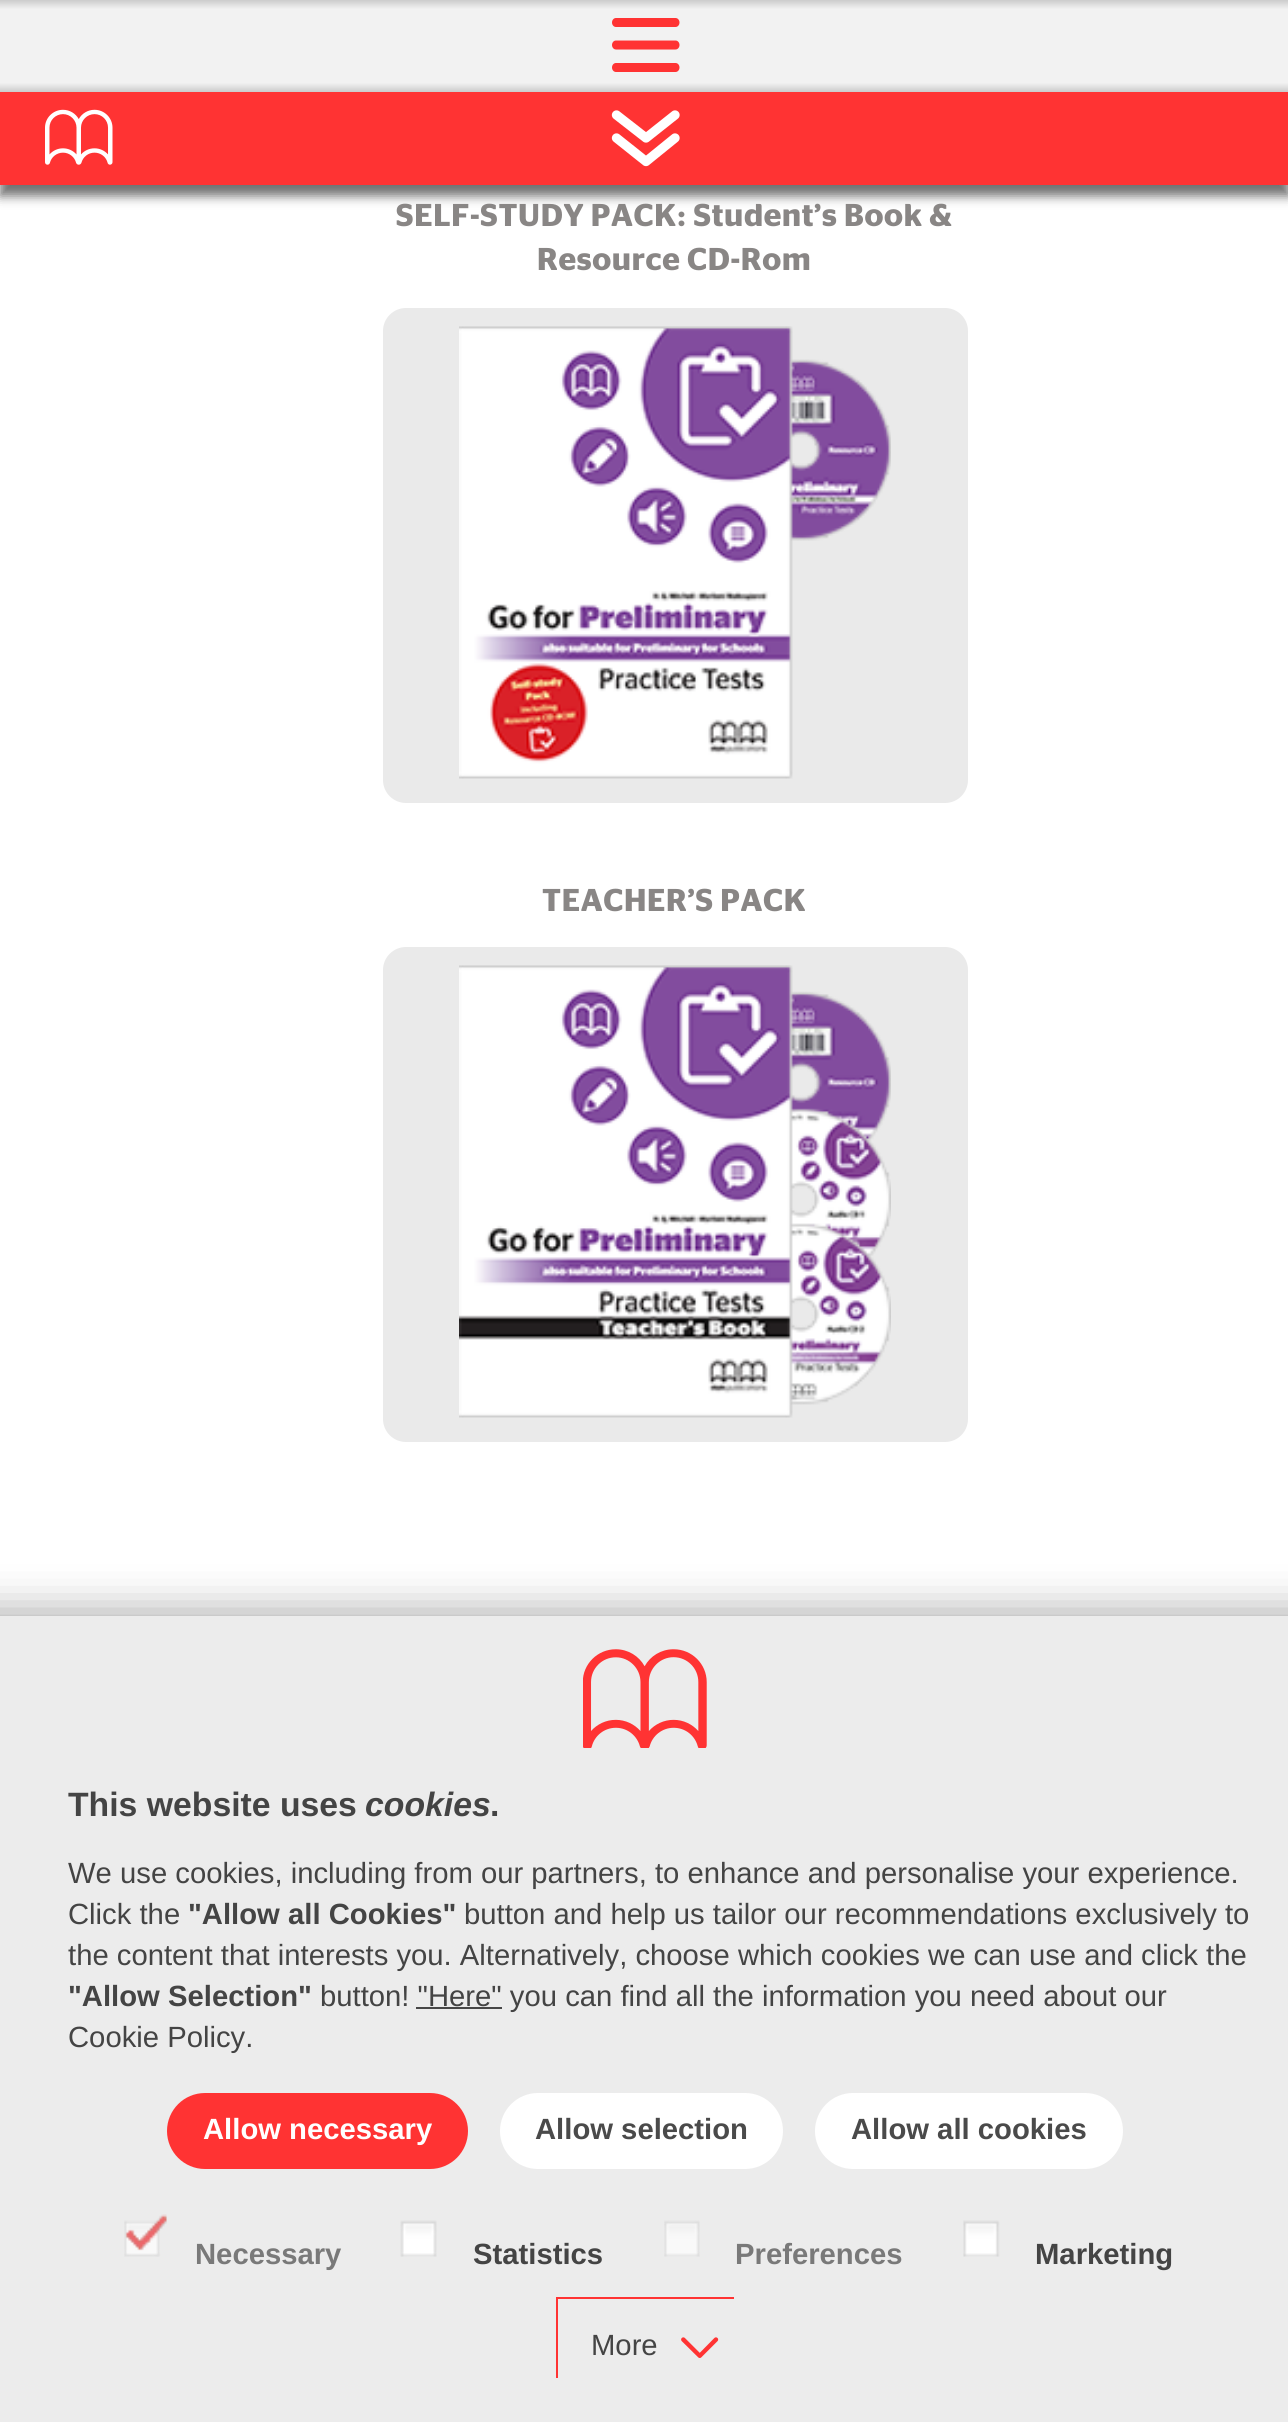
#include <cairo.h>
#include <math.h>
#include <stddef.h>


static void rgb(cairo_t *cr, int r, int g, int b)
{
	cairo_set_source_rgb(cr, r / 255.0, g / 255.0, b / 255.0);
}

static void face(cairo_t *cr, const char *family, double size, int italic, int bold)
{
	cairo_select_font_face(cr, family, italic ? CAIRO_FONT_SLANT_ITALIC : CAIRO_FONT_SLANT_NORMAL,
		bold ? CAIRO_FONT_WEIGHT_BOLD : CAIRO_FONT_WEIGHT_NORMAL);
	cairo_set_font_size(cr, size);
}

static void label(cairo_t *cr, double x, double y, const char *s)
{
	cairo_move_to(cr, x, y);
	cairo_show_text(cr, s);
}

static void tracked(cairo_t *cr, double x, double y, const char *s, double letter, double word)
{
	cairo_move_to(cr, x, y);
	while (*s) {
		char ch[5] = {0};
		int n = 0;
		do ch[n++] = *s++; while ((*s & 0xC0) == 0x80);
		cairo_show_text(cr, ch);
		cairo_rel_move_to(cr, letter + word * (*ch == ' '), 0);
	}
}

static void rect(cairo_t *cr, double x, double y, double w, double h)
{
	cairo_rectangle(cr, x, y, w, h);
	cairo_fill(cr);
}

static void rrect(cairo_t *cr, double x, double y, double w, double h, double r)
{
	cairo_new_sub_path(cr);
	cairo_arc(cr, x + w - r, y + h - r, r, 0, M_PI / 2);
	cairo_arc(cr, x + r, y + h - r, r, M_PI / 2, M_PI);
	cairo_arc(cr, x + r, y + r, r, M_PI, 1.5 * M_PI);
	cairo_arc(cr, x + w - r, y + r, r, 1.5 * M_PI, 2 * M_PI);
	cairo_close_path(cr);
}

static void soft_shadow(cairo_t *cr, double x, double y, double w, double h, double r, double blur, double alpha)
{
	cairo_push_group_with_content(cr, CAIRO_CONTENT_ALPHA);
	cairo_set_operator(cr, CAIRO_OPERATOR_SOURCE);
	for (int i = 15; i >= -15 && fmin(w, h) + blur * i / 3 > 0; i -= 2) {
		double e = blur * i / 6;
		cairo_set_source_rgba(cr, 0, 0, 0, alpha * erfc((i - 1) / 8.5) / 2);
		rrect(cr, x - e, y - e, w + 2 * e, h + 2 * e, fmax(0, fmin(r + e + blur * .6, fmin(w, h) / 2 + e)));
		cairo_fill(cr);
	}
	cairo_pattern_t *soft = cairo_pop_group(cr);
	cairo_mask(cr, soft);
	cairo_pattern_destroy(soft);
}

static void image(cairo_t *cr, const char *path, double x, double y, double w, double h)
{
	cairo_surface_t *image = cairo_image_surface_create_from_png(path);
	cairo_save(cr);
	cairo_set_source_surface(cr, image, x, y);
	cairo_rectangle(cr, x, y, w, h);
	cairo_fill(cr);
	cairo_restore(cr);
	cairo_surface_destroy(image);
}

static void draw(cairo_t *cr) {
	cairo_pattern_t *gradient;
	rgb(cr, 255, 255, 255);
	cairo_paint(cr);
	gradient = cairo_pattern_create_linear(645, 0, 645, 92);
	cairo_pattern_add_color_stop_rgba(gradient, 0, 0.8, 0.8, 0.8, 1);
	cairo_pattern_add_color_stop_rgba(gradient, 0.1, 0.949, 0.949, 0.949, 1);
	cairo_pattern_add_color_stop_rgba(gradient, 0.9, 0.949, 0.949, 0.949, 1);
	cairo_pattern_add_color_stop_rgba(gradient, 1, 0.8, 0.8, 0.8, 1);
	cairo_set_source(cr, gradient);
	cairo_pattern_destroy(gradient);
	rect(cr, 0, 0, 1288, 92);
	image(cr, "image0.png", 612, 18, 68, 54);
	rgb(cr, 51, 51, 51);
	soft_shadow(cr, 0, 104, 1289, 92, 0, 5.5, 0.7);
	rgb(cr, 255, 51, 51);
	rect(cr, 0, 92, 1288, 93);
	image(cr, "image1.png", 45, 109, 68, 56);
	cairo_new_path(cr);
	cairo_move_to(cr, 616.5, 115);
	cairo_line_to(cr, 646, 138);
	cairo_line_to(cr, 675, 115);
	rgb(cr, 255, 255, 255);
	cairo_set_line_width(cr, 9.3);
	cairo_set_line_cap(cr, CAIRO_LINE_CAP_ROUND);
	cairo_set_line_join(cr, CAIRO_LINE_JOIN_ROUND);
	cairo_stroke(cr);
	cairo_new_path(cr);
	cairo_move_to(cr, 616.5, 138);
	cairo_line_to(cr, 646, 161.5);
	cairo_line_to(cr, 675, 138);
	cairo_stroke(cr);
	face(cr, "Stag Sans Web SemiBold", 31.5, 0, 0);
	rgb(cr, 137, 134, 133);
	tracked(cr, 396, 226, "SELF-STUDY PACK: Student’s Book &", 0.7, 0);
	tracked(cr, 537, 270, "Resource CD-Rom", 0.7, 0);
	rgb(cr, 234, 234, 234);
	rrect(cr, 383, 308, 585, 495, 23);
	cairo_fill(cr);
	image(cr, "image2.png", 459, 326, 432, 453);
	rgb(cr, 137, 134, 133);
	tracked(cr, 542, 911, "TEACHER’S PACK", 0.7, 0);
	rgb(cr, 234, 234, 234);
	rrect(cr, 383, 947, 585, 495, 23);
	cairo_fill(cr);
	image(cr, "image3.png", 459, 965, 432, 453);
	rgb(cr, 0, 0, 0);
	soft_shadow(cr, -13, 1611, 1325, 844, 0, 21.5, 0.33);
	rgb(cr, 236, 236, 236);
	rect(cr, 0, 1616, 1288, 806);
	image(cr, "image4.png", 583, 1649, 124, 99);
	face(cr, "Liberation Sans", 33.75, 0, 1);
	rgb(cr, 68, 68, 68);
	label(cr, 68, 1816, "This website uses");
	face(cr, "Liberation Sans", 33.75, 1, 1);
	label(cr, 365, 1816, "cookies");
	face(cr, "Liberation Sans", 33.75, 0, 1);
	label(cr, 490, 1816, ".");
	face(cr, "Liberation Sans", 29.25, 0, 0);
	label(cr, 68, 1883, "We use cookies, including from our partners, to enhance and personalise your experience.");
	label(cr, 68, 1924, "Click the");
	face(cr, "Liberation Sans", 29.25, 0, 1);
	label(cr, 188, 1924, "\"Allow all Cookies\"");
	face(cr, "Liberation Sans", 29.25, 0, 0);
	label(cr, 464, 1924, "button and help us tailor our recommendations exclusively to");
	label(cr, 68, 1965, "the content that interests you. Alternatively, choose which cookies we can use and click the");
	face(cr, "Liberation Sans", 29.25, 0, 1);
	label(cr, 68, 2006, "\"Allow Selection\"");
	face(cr, "Liberation Sans", 29.25, 0, 0);
	label(cr, 320, 2006, "button! \"Here\" you can find all the information you need about our");
	rgb(cr, 71, 71, 71);
	rect(cr, 416, 2007, 86, 2);
	rgb(cr, 68, 68, 68);
	label(cr, 68, 2047, "Cookie Policy.");
	rgb(cr, 255, 51, 51);
	rrect(cr, 167, 2093, 301, 76, 38);
	cairo_fill(cr);
	face(cr, "Liberation Sans", 29.25, 0, 1);
	rgb(cr, 255, 255, 255);
	label(cr, 203, 2139, "Allow necessary");
	rrect(cr, 500, 2093, 283, 76, 38);
	cairo_fill(cr);
	rgb(cr, 74, 74, 74);
	label(cr, 535, 2139, "Allow selection");
	rgb(cr, 255, 255, 255);
	rrect(cr, 815, 2093, 308, 76, 38);
	cairo_fill(cr);
	rgb(cr, 74, 74, 74);
	label(cr, 851, 2139, "Allow all cookies");
	image(cr, "image5.png", 124, 2214, 43, 43);
	rgb(cr, 121, 121, 121);
	label(cr, 195, 2264, "Necessary");
	image(cr, "image6.png", 400, 2220, 37, 37);
	rgb(cr, 68, 68, 68);
	label(cr, 473, 2264, "Statistics");
	image(cr, "image7.png", 664, 2220, 36, 37);
	rgb(cr, 121, 121, 121);
	label(cr, 735, 2264, "Preferences");
	image(cr, "image8.png", 963, 2220, 37, 37);
	rgb(cr, 68, 68, 68);
	label(cr, 1035, 2264, "Marketing");
	rgb(cr, 255, 51, 51);
	rect(cr, 556, 2297, 178, 2);
	rect(cr, 556, 2297, 2, 81);
	face(cr, "Liberation Sans", 29.25, 0, 0);
	rgb(cr, 68, 68, 68);
	label(cr, 591, 2355, "More");
	image(cr, "image9.png", 681, 2337, 38, 21);
}

int main(void) {
	cairo_surface_t *surface = cairo_image_surface_create(CAIRO_FORMAT_RGB24, 1288, 2422);
	cairo_t *cr = cairo_create(surface);
	cairo_font_options_t *options = cairo_font_options_create();
	cairo_font_options_set_hint_metrics(options, CAIRO_HINT_METRICS_OFF);
	cairo_font_options_set_hint_style(options, CAIRO_HINT_STYLE_NONE);
	cairo_set_font_options(cr, options);
	cairo_set_miter_limit(cr, 4);
	draw(cr);
	cairo_surface_write_to_png(surface, "render.png");
	cairo_font_options_destroy(options);
	cairo_destroy(cr);
	cairo_surface_destroy(surface);
	return 0;
}
